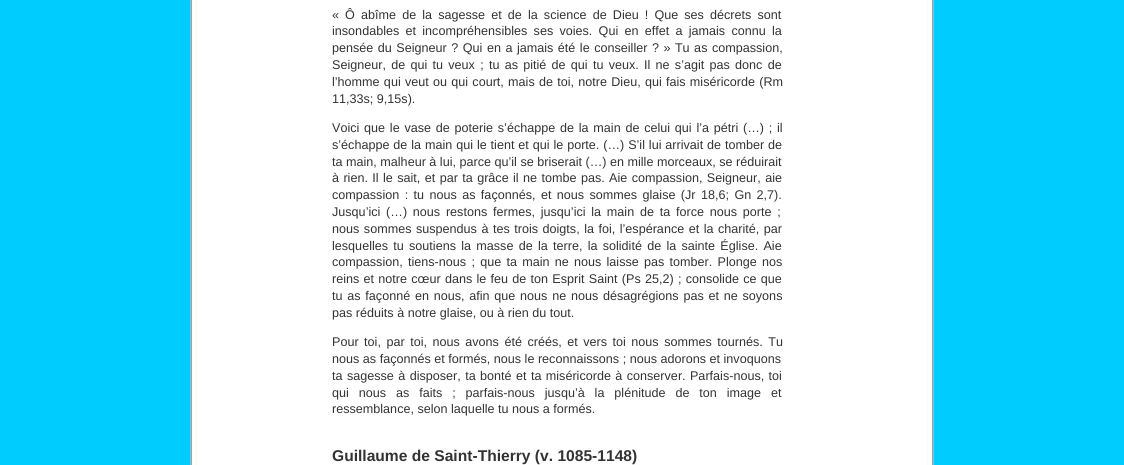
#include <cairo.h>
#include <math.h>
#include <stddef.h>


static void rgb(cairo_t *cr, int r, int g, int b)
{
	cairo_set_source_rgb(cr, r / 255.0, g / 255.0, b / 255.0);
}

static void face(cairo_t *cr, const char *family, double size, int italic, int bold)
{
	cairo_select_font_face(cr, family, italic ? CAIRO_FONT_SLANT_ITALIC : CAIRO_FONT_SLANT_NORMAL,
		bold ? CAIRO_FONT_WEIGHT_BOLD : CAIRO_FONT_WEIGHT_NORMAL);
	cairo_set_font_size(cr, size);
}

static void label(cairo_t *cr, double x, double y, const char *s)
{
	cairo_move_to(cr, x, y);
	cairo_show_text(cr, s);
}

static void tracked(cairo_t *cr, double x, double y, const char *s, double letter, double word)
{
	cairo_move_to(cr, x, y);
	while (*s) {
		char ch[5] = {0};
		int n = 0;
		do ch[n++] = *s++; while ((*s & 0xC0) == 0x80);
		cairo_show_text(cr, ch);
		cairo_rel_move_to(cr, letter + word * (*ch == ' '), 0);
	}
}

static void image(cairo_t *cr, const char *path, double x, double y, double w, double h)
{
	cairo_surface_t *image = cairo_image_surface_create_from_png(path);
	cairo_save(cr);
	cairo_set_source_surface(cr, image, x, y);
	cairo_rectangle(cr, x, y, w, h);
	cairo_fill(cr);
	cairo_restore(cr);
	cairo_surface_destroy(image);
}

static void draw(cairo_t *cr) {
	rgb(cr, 0, 204, 253);
	cairo_paint(cr);
	image(cr, "image0.png", 190, 0, 744, 465);
	face(cr, "Liberation Sans", 12.6, 0, 0);
	rgb(cr, 51, 51, 51);
	tracked(cr, 332, 19, "« Ô abîme de la sagesse et de la science de Dieu ! Que ses décrets sont", 0, 2.6);
	tracked(cr, 332, 35, "insondables et incompréhensibles ses voies. Qui en effet a jamais connu la", 0, 2.75);
	tracked(cr, 332, 52, "pensée du Seigneur ? Qui en a jamais été le conseiller ? » Tu as compassion,", 0, 1);
	tracked(cr, 332, 69, "Seigneur, de qui tu veux ; tu as pitié de qui tu veux. Il ne s’agit pas donc de", 0, 1.75);
	tracked(cr, 332, 86, "l’homme qui veut ou qui court, mais de toi, notre Dieu, qui fais miséricorde (Rm", 0, 0.75);
	label(cr, 332, 103, "11,33s; 9,15s).");
	tracked(cr, 332, 132, "Voici que le vase de poterie s’échappe de la main de celui qui l’a pétri (…) ; il", 0, 1.25);
	tracked(cr, 332, 149, "s’échappe de la main qui le tient et qui le porte. (…) S’il lui arrivait de tomber de", 0, 0.4);
	label(cr, 332, 166, "ta main, malheur à lui, parce qu’il se briserait (…) en mille morceaux, se réduirait");
	tracked(cr, 332, 182, "à rien. Il le sait, et par ta grâce il ne tombe pas. Aie compassion, Seigneur, aie", 0, 0.9);
	tracked(cr, 332, 199, "compassion : tu nous as façonnés, et nous sommes glaise (Jr 18,6; Gn 2,7).", 0, 1.9);
	tracked(cr, 332, 216, "Jusqu’ici (…) nous restons fermes, jusqu’ici la main de ta force nous porte ;", 0, 2.25);
	tracked(cr, 332, 233, "nous sommes suspendus à tes trois doigts, la foi, l’espérance et la charité, par", 0, 1);
	tracked(cr, 332, 250, "lesquelles tu soutiens la masse de la terre, la solidité de la sainte Église. Aie", 0, 1.75);
	tracked(cr, 332, 266, "compassion, tiens-nous ; que ta main ne nous laisse pas tomber. Plonge nos", 0, 1.75);
	tracked(cr, 332, 283, "reins et notre cœur dans le feu de ton Esprit Saint (Ps 25,2) ; consolide ce que", 0, 0.75);
	tracked(cr, 332, 300, "tu as façonné en nous, afin que nous ne nous désagrégions pas et ne soyons", 0, 1.25);
	label(cr, 332, 317, "pas réduits à notre glaise, ou à rien du tout.");
	tracked(cr, 332, 346, "Pour toi, par toi, nous avons été créés, et vers toi nous sommes tournés. Tu", 0, 2);
	label(cr, 332, 363, "nous as façonnés et formés, nous le reconnaissons ; nous adorons et invoquons");
	tracked(cr, 332, 380, "ta sagesse à disposer, ta bonté et ta miséricorde à conserver. Parfais-nous, toi", 0, 0.9);
	tracked(cr, 332, 397, "qui nous as faits ; parfais-nous jusqu’à la plénitude de ton image et", 0, 6.4);
	label(cr, 332, 413, "ressemblance, selon laquelle tu nous a formés.");
	face(cr, "Liberation Sans", 15.6, 0, 1);
	label(cr, 332, 461, "Guillaume de Saint-Thierry (v. 1085-1148)");
}

int main(void) {
	cairo_surface_t *surface = cairo_image_surface_create(CAIRO_FORMAT_RGB24, 1124, 465);
	cairo_t *cr = cairo_create(surface);
	cairo_font_options_t *options = cairo_font_options_create();
	cairo_font_options_set_hint_metrics(options, CAIRO_HINT_METRICS_OFF);
	cairo_font_options_set_hint_style(options, CAIRO_HINT_STYLE_NONE);
	cairo_set_font_options(cr, options);
	cairo_set_miter_limit(cr, 4);
	draw(cr);
	cairo_surface_write_to_png(surface, "render.png");
	cairo_font_options_destroy(options);
	cairo_destroy(cr);
	cairo_surface_destroy(surface);
	return 0;
}
